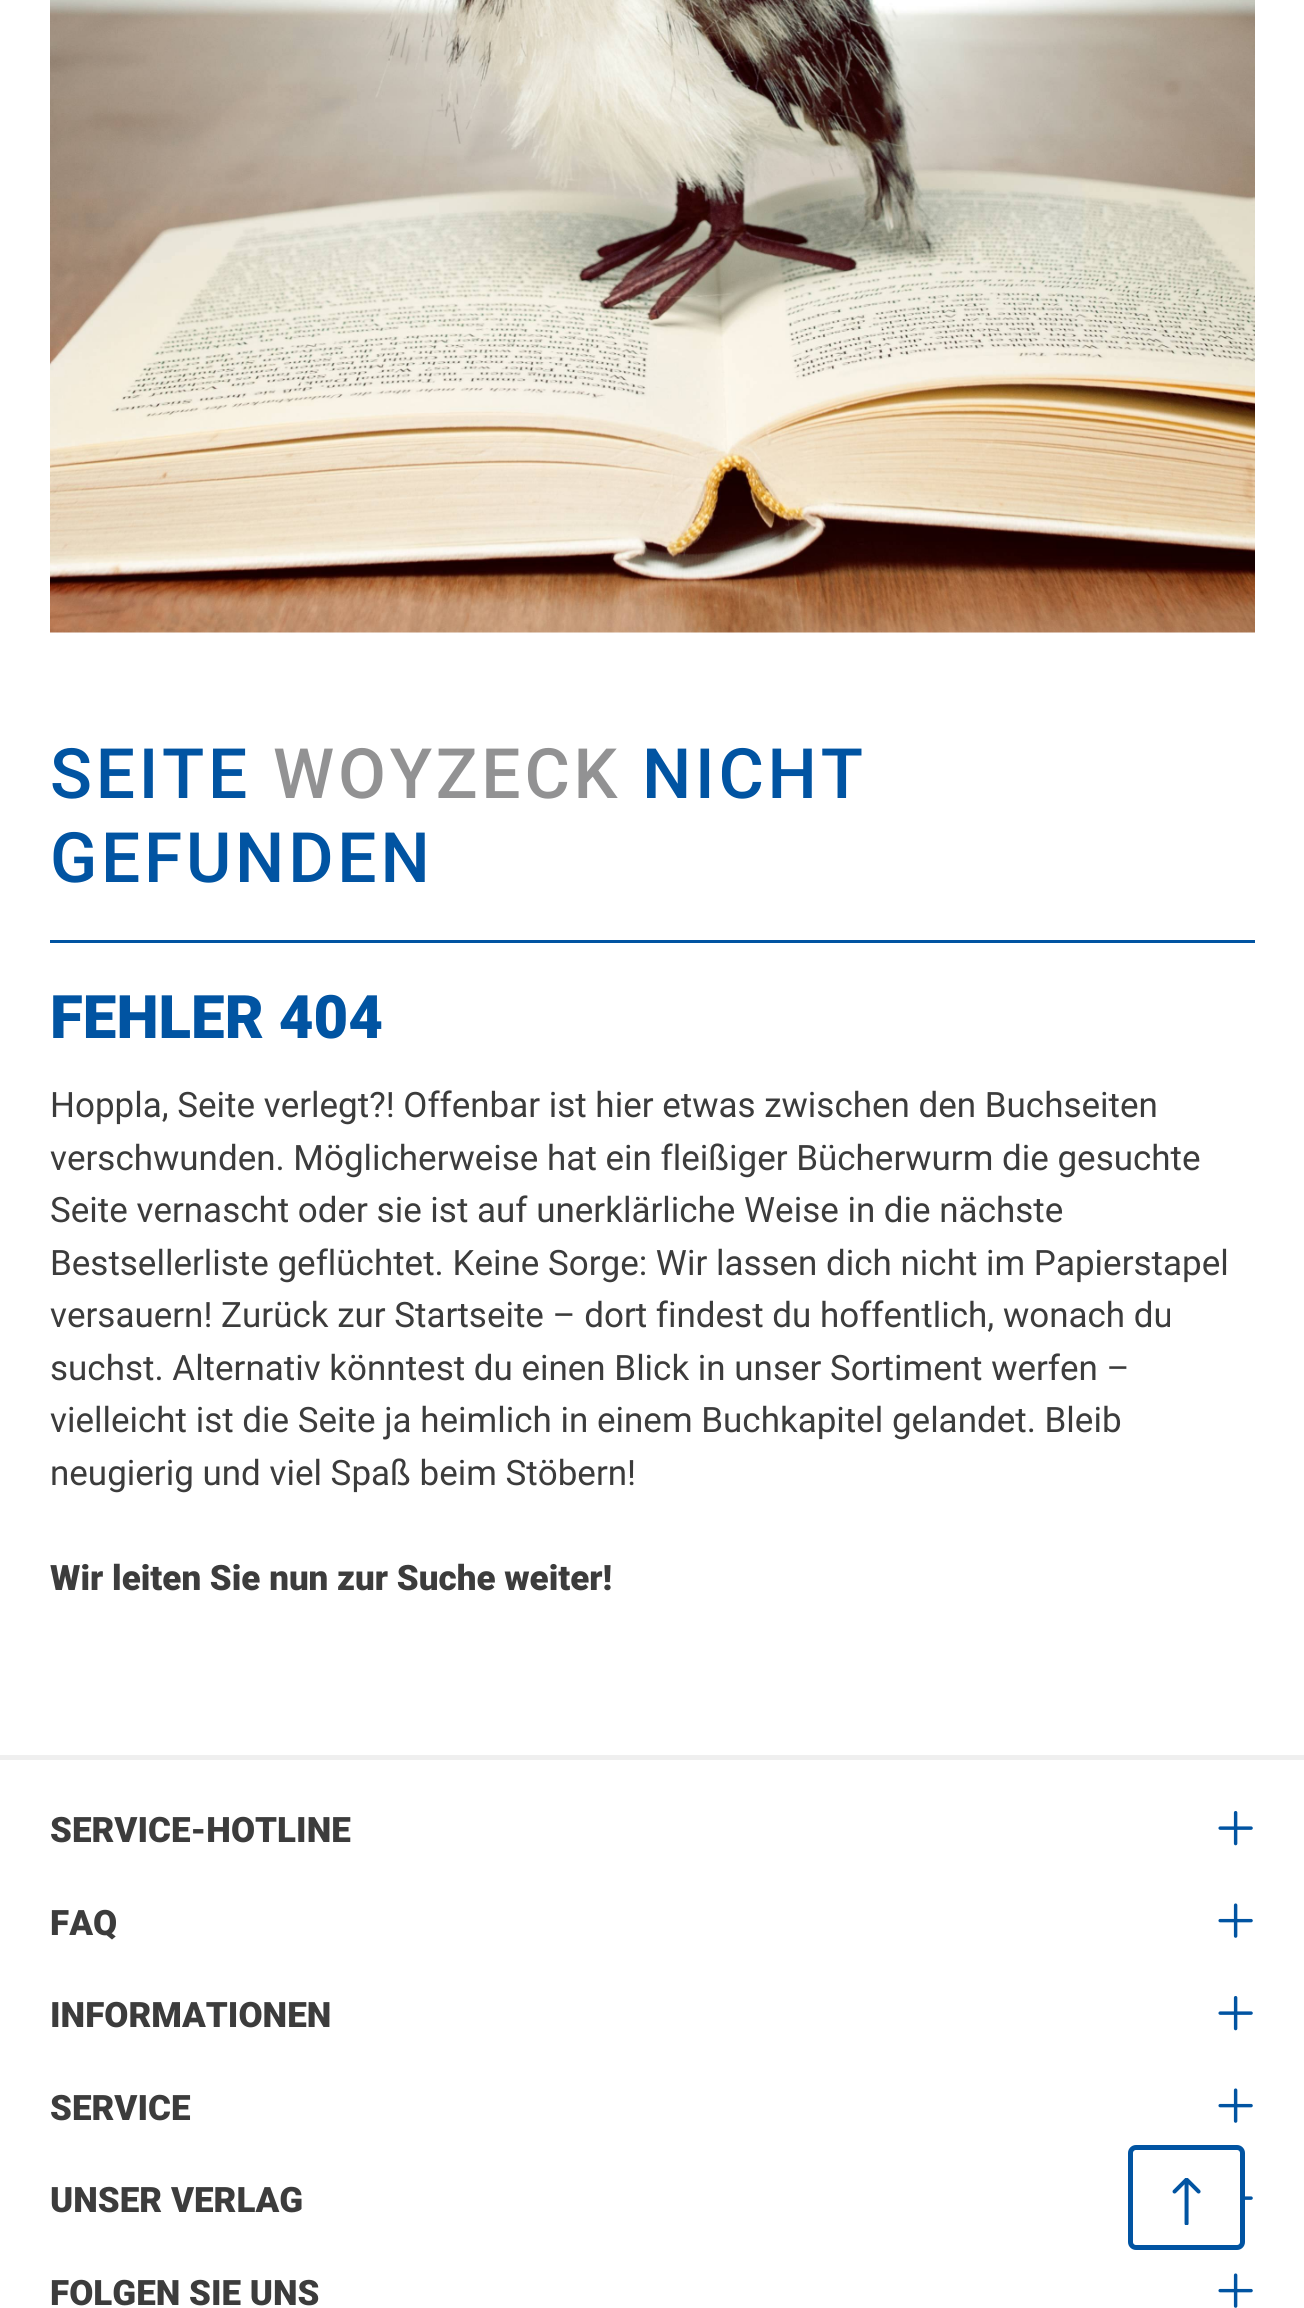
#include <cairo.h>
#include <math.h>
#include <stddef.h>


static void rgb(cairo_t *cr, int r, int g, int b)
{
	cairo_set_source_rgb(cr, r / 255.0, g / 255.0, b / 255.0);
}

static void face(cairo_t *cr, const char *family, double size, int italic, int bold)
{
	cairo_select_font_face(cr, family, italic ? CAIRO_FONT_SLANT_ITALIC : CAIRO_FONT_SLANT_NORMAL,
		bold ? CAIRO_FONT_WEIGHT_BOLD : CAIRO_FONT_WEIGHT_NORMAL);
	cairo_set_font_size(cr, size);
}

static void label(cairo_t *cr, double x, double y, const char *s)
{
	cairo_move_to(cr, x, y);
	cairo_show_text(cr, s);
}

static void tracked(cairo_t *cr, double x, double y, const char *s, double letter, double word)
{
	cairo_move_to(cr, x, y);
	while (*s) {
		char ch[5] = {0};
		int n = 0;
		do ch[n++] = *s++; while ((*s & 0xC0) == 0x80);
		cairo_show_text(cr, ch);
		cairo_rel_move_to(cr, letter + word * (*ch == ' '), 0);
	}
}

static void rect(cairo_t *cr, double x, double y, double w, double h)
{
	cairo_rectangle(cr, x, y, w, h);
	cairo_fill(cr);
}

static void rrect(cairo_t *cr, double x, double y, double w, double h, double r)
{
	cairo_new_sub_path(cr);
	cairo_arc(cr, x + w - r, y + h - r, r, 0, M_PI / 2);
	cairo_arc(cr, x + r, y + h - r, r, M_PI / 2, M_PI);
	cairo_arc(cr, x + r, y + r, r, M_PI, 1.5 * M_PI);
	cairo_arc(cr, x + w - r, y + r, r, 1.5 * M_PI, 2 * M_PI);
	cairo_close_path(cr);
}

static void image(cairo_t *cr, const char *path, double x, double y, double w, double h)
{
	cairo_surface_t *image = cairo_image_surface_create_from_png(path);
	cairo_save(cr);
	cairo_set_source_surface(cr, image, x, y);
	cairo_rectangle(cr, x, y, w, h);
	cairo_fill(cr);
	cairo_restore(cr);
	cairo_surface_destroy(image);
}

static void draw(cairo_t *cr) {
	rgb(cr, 255, 255, 255);
	cairo_paint(cr);
	image(cr, "image0.png", 50, 0, 1205, 633);
	face(cr, "Roboto Medium", 69.5, 0, 0);
	rgb(cr, 1, 84, 162);
	tracked(cr, 50, 798, "SEITE", 3.75, 0);
	rgb(cr, 146, 146, 147);
	tracked(cr, 273, 798, "WOYZECK", 3.75, 0);
	rgb(cr, 1, 84, 162);
	tracked(cr, 642, 798, "NICHT", 3.75, 0);
	tracked(cr, 50, 882, "GEFUNDEN", 3.75, 0);
	rect(cr, 50, 940, 1205, 3);
	face(cr, "Roboto Black", 60, 0, 0);
	label(cr, 50, 1038, "FEHLER 404");
	face(cr, "Roboto", 35, 0, 0);
	rgb(cr, 60, 60, 60);
	label(cr, 50, 1117, "Hoppla, Seite verlegt?! Offenbar ist hier etwas zwischen den Buchseiten");
	label(cr, 50, 1170, "verschwunden. Möglicherweise hat ein fleißiger Bücherwurm die gesuchte");
	label(cr, 50, 1222, "Seite vernascht oder sie ist auf unerklärliche Weise in die nächste");
	label(cr, 50, 1275, "Bestsellerliste geflüchtet. Keine Sorge: Wir lassen dich nicht im Papierstapel");
	label(cr, 50, 1327, "versauern! Zurück zur Startseite – dort findest du hoffentlich, wonach du");
	label(cr, 50, 1380, "suchst. Alternativ könntest du einen Blick in unser Sortiment werfen –");
	label(cr, 50, 1432, "vielleicht ist die Seite ja heimlich in einem Buchkapitel gelandet. Bleib");
	label(cr, 50, 1485, "neugierig und viel Spaß beim Stöbern!");
	face(cr, "Roboto Black", 35, 0, 0);
	label(cr, 50, 1590, "Wir leiten Sie nun zur Suche weiter!");
	rgb(cr, 239, 239, 239);
	rect(cr, 0, 1755, 1304, 5);
	rgb(cr, 60, 60, 60);
	label(cr, 50, 1842, "SERVICE-HOTLINE");
	image(cr, "image1.png", 1218, 1811, 35, 35);
	label(cr, 50, 1935, "FAQ");
	image(cr, "image2.png", 1218, 1903, 35, 35);
	label(cr, 50, 2027, "INFORMATIONEN");
	image(cr, "image1.png", 1218, 1996, 35, 35);
	label(cr, 50, 2120, "SERVICE");
	image(cr, "image2.png", 1218, 2088, 35, 35);
	label(cr, 50, 2212, "UNSER VERLAG");
	image(cr, "image3.png", 1245, 2196, 8, 4);
	label(cr, 50, 2305, "FOLGEN SIE UNS");
	image(cr, "image2.png", 1218, 2273, 35, 35);
	rrect(cr, 1130.5, 2147.5, 112, 100, 5.5);
	rgb(cr, 1, 84, 162);
	cairo_set_line_width(cr, 5);
	cairo_stroke(cr);
	image(cr, "image4.png", 1172, 2178, 29, 47);
}

int main(void) {
	cairo_surface_t *surface = cairo_image_surface_create(CAIRO_FORMAT_RGB24, 1304, 2308);
	cairo_t *cr = cairo_create(surface);
	cairo_font_options_t *options = cairo_font_options_create();
	cairo_font_options_set_hint_metrics(options, CAIRO_HINT_METRICS_OFF);
	cairo_font_options_set_hint_style(options, CAIRO_HINT_STYLE_NONE);
	cairo_set_font_options(cr, options);
	cairo_set_miter_limit(cr, 4);
	draw(cr);
	cairo_surface_write_to_png(surface, "render.png");
	cairo_font_options_destroy(options);
	cairo_destroy(cr);
	cairo_surface_destroy(surface);
	return 0;
}
